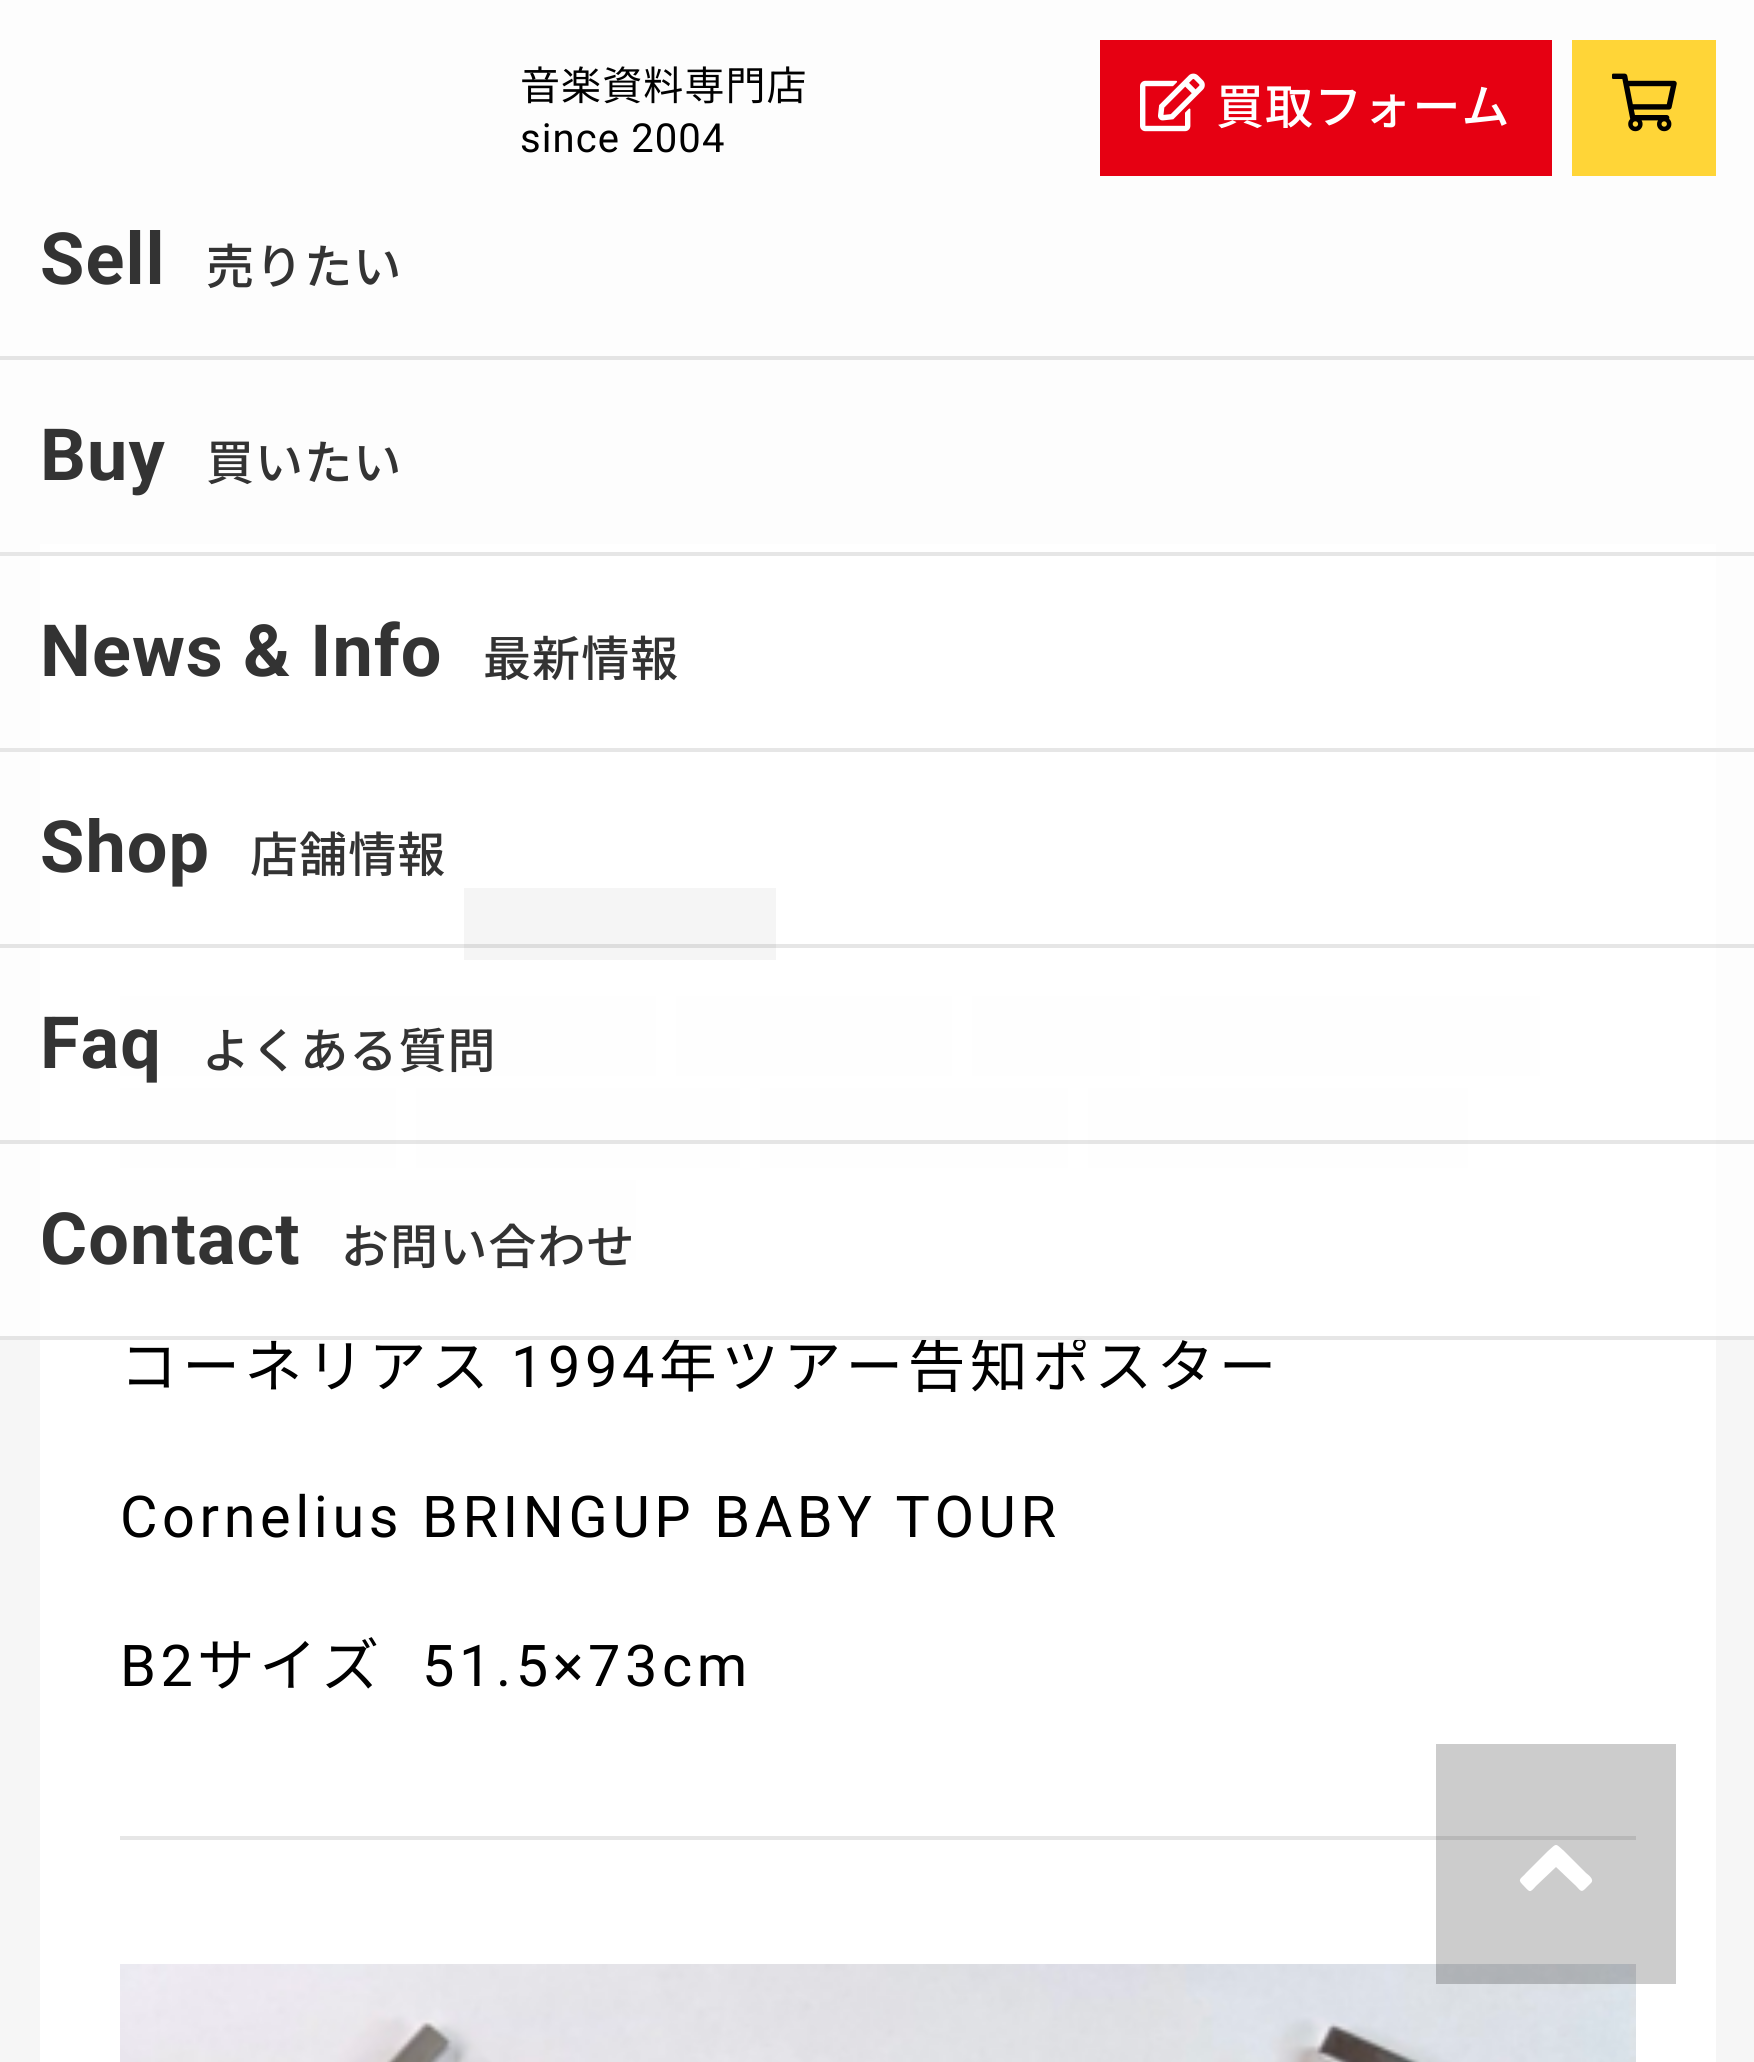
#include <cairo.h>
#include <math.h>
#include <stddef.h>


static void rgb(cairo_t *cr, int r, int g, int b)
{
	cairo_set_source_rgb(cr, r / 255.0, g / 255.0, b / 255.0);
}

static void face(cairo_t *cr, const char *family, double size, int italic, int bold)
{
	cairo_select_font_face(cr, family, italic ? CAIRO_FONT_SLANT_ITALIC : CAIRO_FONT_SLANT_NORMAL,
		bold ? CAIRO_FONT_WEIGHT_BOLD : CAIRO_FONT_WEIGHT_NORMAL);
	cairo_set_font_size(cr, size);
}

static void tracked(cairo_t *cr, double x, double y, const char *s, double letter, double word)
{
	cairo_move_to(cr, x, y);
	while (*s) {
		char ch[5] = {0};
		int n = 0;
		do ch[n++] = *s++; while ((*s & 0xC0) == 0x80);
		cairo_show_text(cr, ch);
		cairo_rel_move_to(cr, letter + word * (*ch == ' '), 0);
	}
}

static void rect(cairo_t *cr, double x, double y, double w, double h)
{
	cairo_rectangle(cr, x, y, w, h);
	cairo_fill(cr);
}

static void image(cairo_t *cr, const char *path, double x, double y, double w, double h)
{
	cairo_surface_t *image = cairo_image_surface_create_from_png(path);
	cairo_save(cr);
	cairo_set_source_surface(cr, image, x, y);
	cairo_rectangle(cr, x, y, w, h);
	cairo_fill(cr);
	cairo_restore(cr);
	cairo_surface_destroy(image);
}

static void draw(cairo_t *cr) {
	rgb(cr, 246, 246, 246);
	cairo_paint(cr);
	rgb(cr, 255, 255, 255);
	rect(cr, 40, 544, 1676, 1518);
	rgb(cr, 0, 0, 0);
	rect(cr, 464, 888, 312, 72);
	rgb(cr, 230, 230, 230);
	rect(cr, 120, 996, 536, 80);
	rect(cr, 676, 996, 276, 80);
	rect(cr, 972, 996, 168, 80);
	rect(cr, 1160, 996, 380, 80);
	rect(cr, 120, 1088, 276, 80);
	rect(cr, 416, 1088, 324, 80);
	rect(cr, 760, 1088, 308, 80);
	rect(cr, 1088, 1088, 380, 80);
	rect(cr, 120, 1180, 220, 80);
	rect(cr, 360, 1180, 276, 80);
	face(cr, "Noto Sans JP", 57.6, 0, 0);
	rgb(cr, 0, 0, 0);
	tracked(cr, 659, 1387, "年ツアー告知ポスター", 4.6, 0);
	cairo_set_source_rgba(cr, 1, 1, 1, 0.8);
	rect(cr, 0, 0, 1754, 1340);
	face(cr, "Noto Sans JP", 40, 0, 0);
	rgb(cr, 0, 0, 0);
	tracked(cr, 520, 100, "音楽資料専門店", 1.1, 0);
	face(cr, "Roboto", 40, 0, 0);
	tracked(cr, 520, 152, "since 2004", 1.1, 0);
	rgb(cr, 230, 0, 18);
	rect(cr, 1100, 40, 452, 136);
	image(cr, "image0.png", 1140, 73, 65, 59);
	face(cr, "Noto Sans JP Medium", 48, 0, 0);
	rgb(cr, 255, 255, 255);
	tracked(cr, 1216, 124, "買取フォーム", 1.1, 0);
	rgb(cr, 255, 213, 55);
	rect(cr, 1572, 40, 144, 136);
	image(cr, "image1.png", 1612, 73, 65, 59);
	cairo_set_source_rgba(cr, 0, 0, 0, 0.1);
	rect(cr, 0, 356, 1754, 4);
	face(cr, "Roboto", 72, 0, 1);
	rgb(cr, 51, 51, 51);
	tracked(cr, 40, 284, "Sell", 1.1, 0);
	face(cr, "Noto Sans JP Medium", 48, 0, 0);
	tracked(cr, 206, 284, "売りたい", 1.1, 0);
	rgb(cr, 230, 230, 230);
	rect(cr, 0, 552, 1754, 4);
	face(cr, "Roboto", 72, 0, 1);
	rgb(cr, 51, 51, 51);
	tracked(cr, 40, 480, "Buy", 1.1, 0);
	face(cr, "Noto Sans JP Medium", 48, 0, 0);
	tracked(cr, 206, 480, "買いたい", 1.1, 0);
	rgb(cr, 230, 230, 230);
	rect(cr, 0, 748, 1754, 4);
	face(cr, "Roboto", 72, 0, 1);
	rgb(cr, 51, 51, 51);
	tracked(cr, 40, 676, "News & Info", 1.1, 0);
	face(cr, "Noto Sans JP Medium", 48, 0, 0);
	tracked(cr, 483, 676, "最新情報", 1.1, 0);
	cairo_set_source_rgba(cr, 1, 1, 1, 0.8);
	rect(cr, 464, 888, 312, 60);
	cairo_set_source_rgba(cr, 0, 0, 0, 0.1);
	rect(cr, 0, 944, 1754, 4);
	face(cr, "Roboto", 72, 0, 1);
	rgb(cr, 51, 51, 51);
	tracked(cr, 40, 872, "Shop", 1.1, 0);
	face(cr, "Noto Sans JP Medium", 48, 0, 0);
	tracked(cr, 250, 872, "店舗情報", 1.1, 0);
	cairo_set_source_rgba(cr, 1, 1, 1, 0.8);
	rect(cr, 120, 948, 1420, 196);
	cairo_set_source_rgba(cr, 0, 0, 0, 0.1);
	rect(cr, 0, 1140, 1754, 4);
	face(cr, "Roboto", 72, 0, 1);
	rgb(cr, 51, 51, 51);
	tracked(cr, 40, 1068, "Faq", 1.1, 0);
	face(cr, "Noto Sans JP Medium", 48, 0, 0);
	tracked(cr, 202, 1068, "よくある質問", 1.1, 0);
	cairo_set_source_rgba(cr, 1, 1, 1, 0.8);
	rect(cr, 120, 1144, 1348, 196);
	cairo_set_source_rgba(cr, 0, 0, 0, 0.1);
	rect(cr, 0, 1336, 1754, 4);
	face(cr, "Roboto", 72, 0, 1);
	rgb(cr, 51, 51, 51);
	tracked(cr, 40, 1264, "Contact", 1.1, 0);
	face(cr, "Noto Sans JP Medium", 48, 0, 0);
	tracked(cr, 341, 1264, "お問い合わせ", 1.1, 0);
	face(cr, "Noto Sans JP", 57.6, 0, 0);
	rgb(cr, 0, 0, 0);
	tracked(cr, 120, 1387, "コーネリアス", 4.6, 0);
	face(cr, "Roboto", 57.6, 0, 0);
	tracked(cr, 511, 1387, "1994", 4.6, 0);
	tracked(cr, 120, 1537, "Cornelius BRINGUP BABY TOUR", 4.6, 0);
	tracked(cr, 120, 1686, "B2", 4.6, 0);
	face(cr, "Noto Sans JP", 57.6, 0, 0);
	tracked(cr, 197, 1686, "サイズ", 4.6, 0);
	face(cr, "Roboto", 57.6, 0, 0);
	tracked(cr, 422, 1686, "51.5×73cm", 4.6, 0);
	rgb(cr, 230, 230, 230);
	rect(cr, 120, 1836, 1516, 4);
	image(cr, "image2.png", 120, 1964, 1516, 98);
	cairo_set_source_rgba(cr, 0, 0, 0, 0.2);
	rect(cr, 1436, 1744, 240, 240);
	rgb(cr, 255, 255, 255);
	cairo_new_path(cr);
	cairo_move_to(cr, 1591, 1883);
	cairo_line_to(cr, 1585, 1889);
	cairo_curve_to(cr, 1581, 1893, 1580, 1890, 1576, 1886);
	cairo_line_to(cr, 1556, 1867);
	cairo_line_to(cr, 1536, 1886);
	cairo_curve_to(cr, 1529, 1894, 1530, 1892, 1522, 1884);
	cairo_curve_to(cr, 1517, 1879, 1522, 1878, 1526, 1873);
	cairo_line_to(cr, 1548, 1851);
	cairo_curve_to(cr, 1557, 1843, 1555, 1843, 1564, 1851);
	cairo_line_to(cr, 1586, 1873);
	cairo_curve_to(cr, 1587, 1874, 1595, 1879, 1591, 1883);
	cairo_close_path(cr);
	cairo_fill(cr);
}

int main(void) {
	cairo_surface_t *surface = cairo_image_surface_create(CAIRO_FORMAT_RGB24, 1754, 2062);
	cairo_t *cr = cairo_create(surface);
	cairo_font_options_t *options = cairo_font_options_create();
	cairo_font_options_set_hint_metrics(options, CAIRO_HINT_METRICS_OFF);
	cairo_font_options_set_hint_style(options, CAIRO_HINT_STYLE_NONE);
	cairo_set_font_options(cr, options);
	cairo_set_miter_limit(cr, 4);
	draw(cr);
	cairo_surface_write_to_png(surface, "render.png");
	cairo_font_options_destroy(options);
	cairo_destroy(cr);
	cairo_surface_destroy(surface);
	return 0;
}
